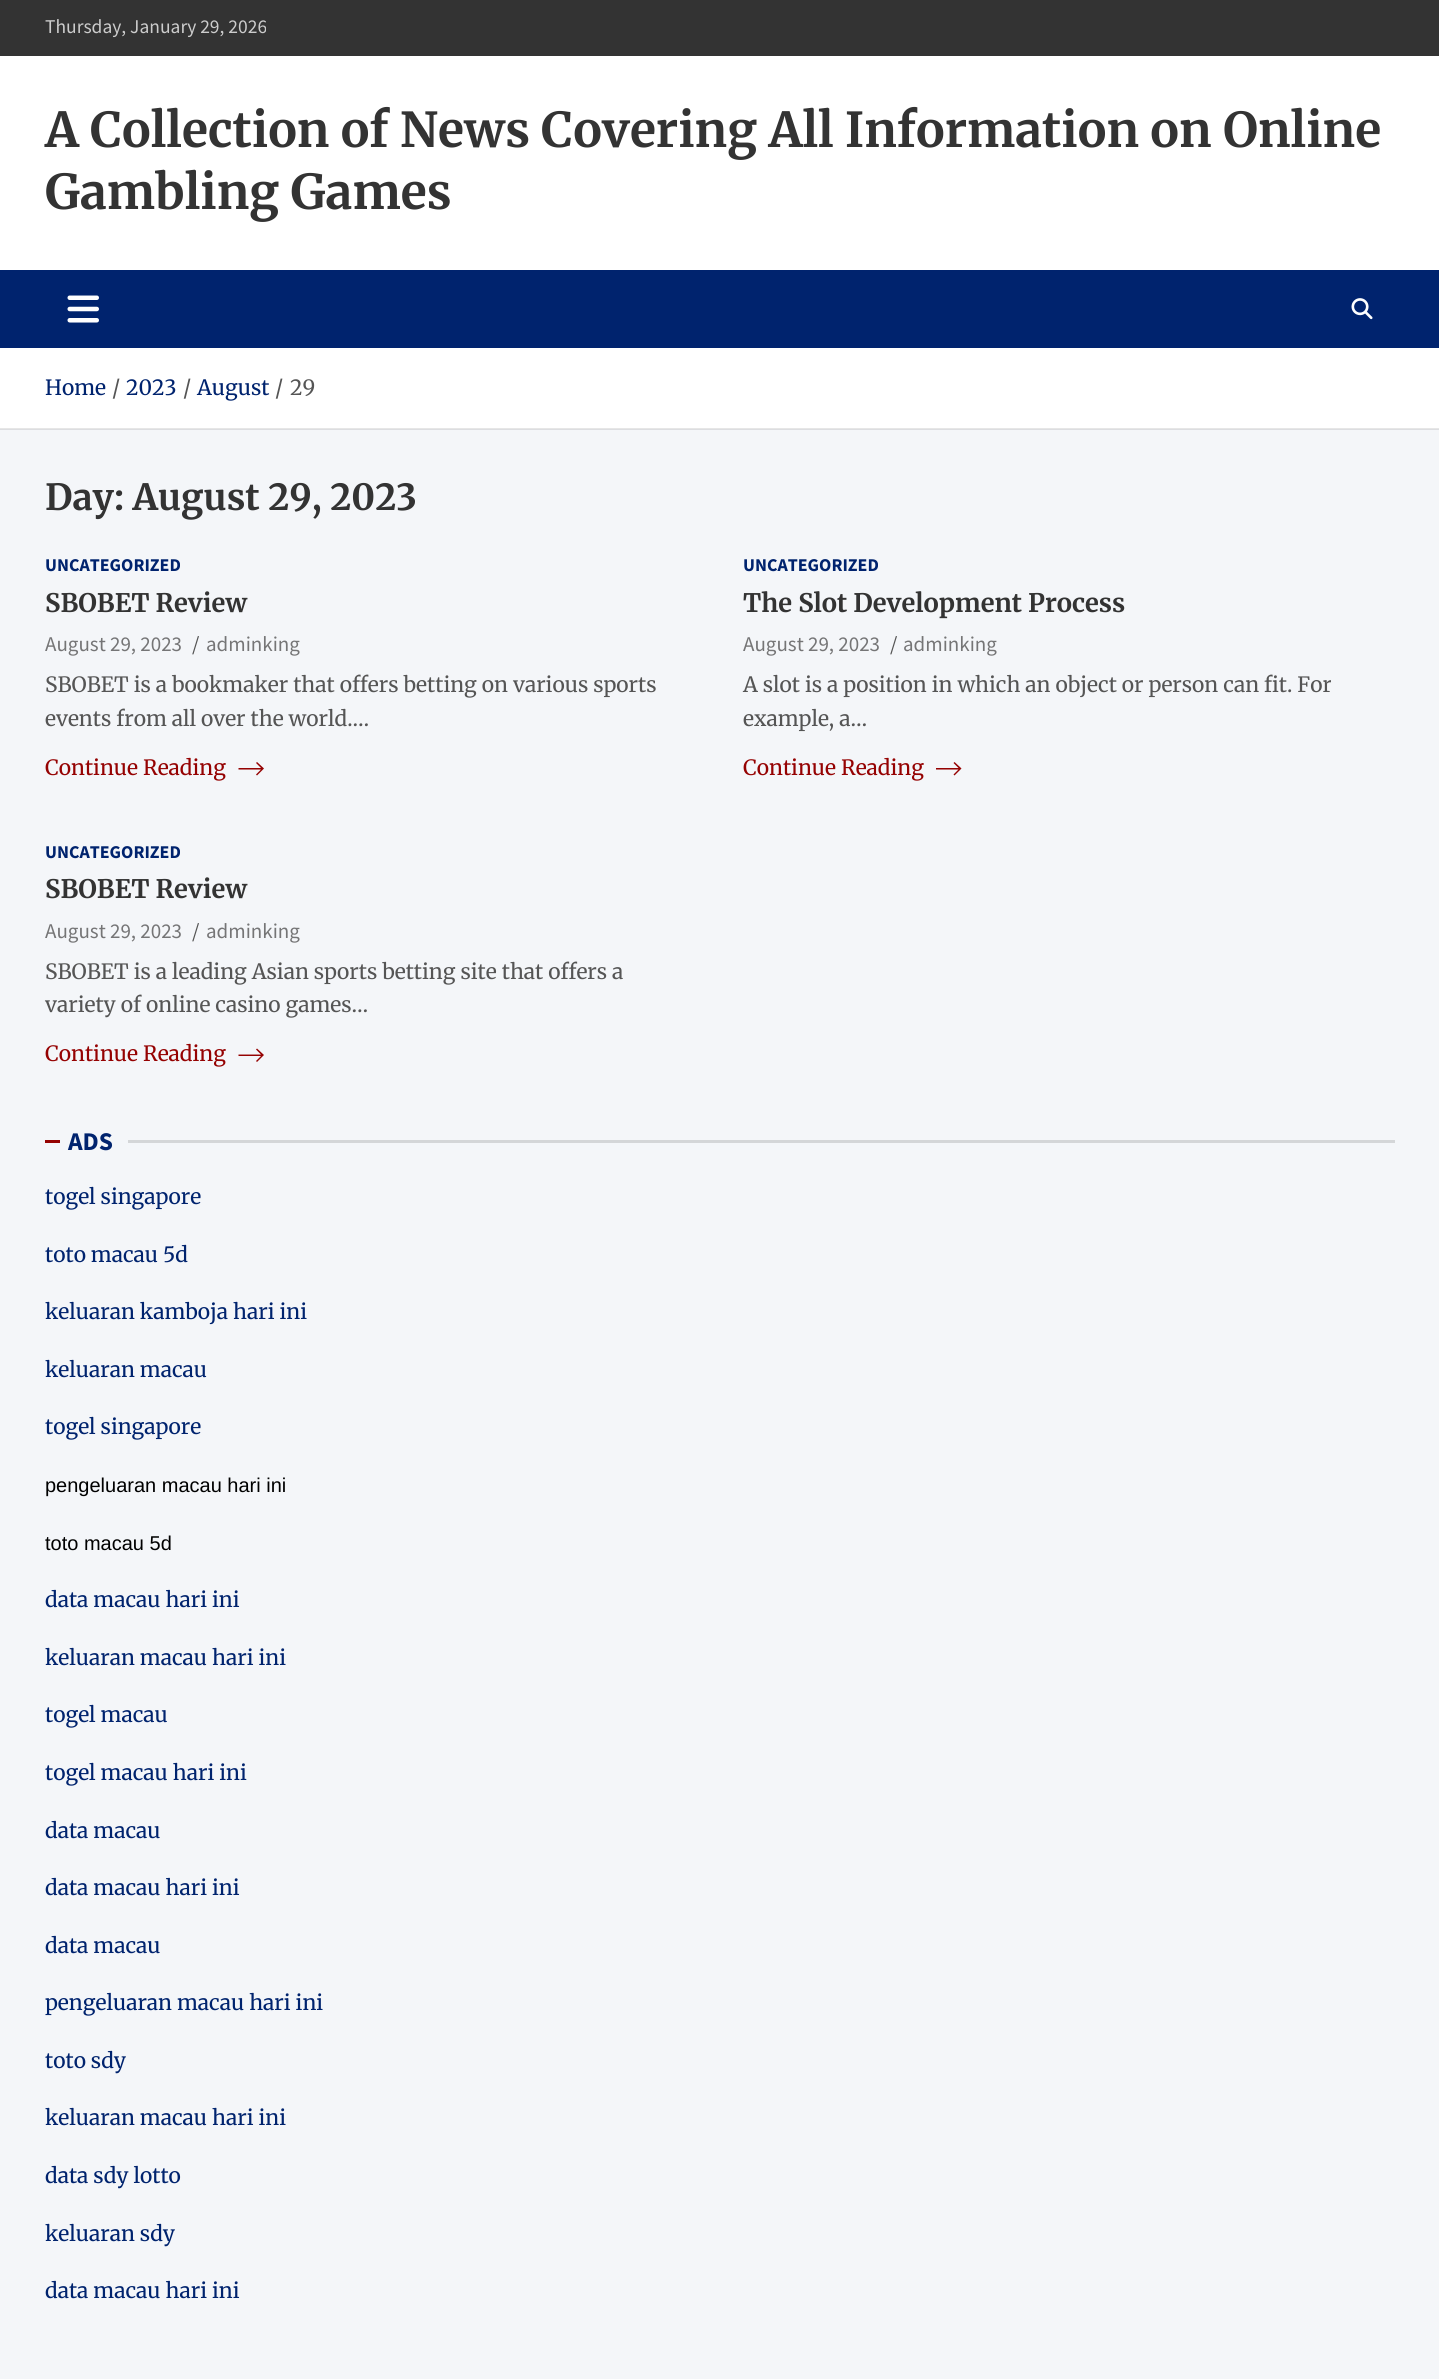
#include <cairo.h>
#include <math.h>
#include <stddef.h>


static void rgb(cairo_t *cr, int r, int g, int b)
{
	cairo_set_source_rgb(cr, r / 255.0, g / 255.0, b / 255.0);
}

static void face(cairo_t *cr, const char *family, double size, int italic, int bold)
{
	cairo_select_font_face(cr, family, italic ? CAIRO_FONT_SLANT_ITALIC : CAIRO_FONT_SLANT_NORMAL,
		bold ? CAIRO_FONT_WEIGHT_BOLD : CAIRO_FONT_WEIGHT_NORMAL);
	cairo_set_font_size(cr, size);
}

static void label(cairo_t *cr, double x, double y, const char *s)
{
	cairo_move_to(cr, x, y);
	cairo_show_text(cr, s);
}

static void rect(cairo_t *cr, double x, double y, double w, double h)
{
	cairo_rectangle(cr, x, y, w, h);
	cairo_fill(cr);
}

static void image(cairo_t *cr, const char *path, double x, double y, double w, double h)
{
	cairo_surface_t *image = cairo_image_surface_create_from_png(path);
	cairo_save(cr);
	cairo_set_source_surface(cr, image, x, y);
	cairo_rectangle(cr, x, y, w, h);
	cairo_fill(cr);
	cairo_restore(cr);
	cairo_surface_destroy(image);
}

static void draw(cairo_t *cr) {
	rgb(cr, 244, 246, 249);
	cairo_paint(cr);
	rgb(cr, 220, 221, 224);
	rect(cr, 0, 429, 1439, 1);
	rgb(cr, 51, 51, 51);
	rect(cr, 0, 0, 1439, 56);
	face(cr, "Source Sans Pro", 19.5, 0, 0);
	rgb(cr, 204, 204, 204);
	label(cr, 45, 33, "Thursday, January 29, 2026");
	rgb(cr, 255, 255, 255);
	rect(cr, 0, 56, 1439, 214);
	face(cr, "Merriweather", 48, 0, 1);
	rgb(cr, 51, 51, 51);
	label(cr, 45, 147, "A Collection of News Covering All Information on Online");
	label(cr, 45, 209, "Gambling Games");
	rgb(cr, 0, 35, 110);
	rect(cr, 0, 270, 1439, 78);
	image(cr, "image0.png", 67, 295, 32, 28);
	image(cr, "image1.png", 1351, 298, 22, 22);
	rgb(cr, 255, 255, 255);
	rect(cr, 0, 348, 1439, 80);
	rgb(cr, 230, 230, 230);
	rect(cr, 0, 428, 1439, 1);
	face(cr, "Merriweather", 21, 0, 0);
	rgb(cr, 0, 35, 110);
	label(cr, 45, 395, "Home");
	rgb(cr, 85, 85, 85);
	label(cr, 112, 395, "/");
	rgb(cr, 0, 35, 110);
	label(cr, 126, 395, "2023");
	rgb(cr, 85, 85, 85);
	label(cr, 183, 395, "/");
	rgb(cr, 0, 35, 110);
	label(cr, 197, 395, "August");
	rgb(cr, 85, 85, 85);
	label(cr, 275, 395, "/");
	label(cr, 290, 395, "29");
	face(cr, "Merriweather", 36, 0, 1);
	rgb(cr, 51, 51, 51);
	label(cr, 45, 510, "Day: August 29, 2023");
	face(cr, "Source Sans Pro", 18, 0, 1);
	rgb(cr, 0, 35, 110);
	label(cr, 45, 571, "UNCATEGORIZED");
	face(cr, "Merriweather", 25.5, 0, 1);
	rgb(cr, 51, 51, 51);
	label(cr, 45, 612, "SBOBET Review");
	face(cr, "Source Sans Pro", 21, 0, 0);
	rgb(cr, 117, 117, 118);
	label(cr, 45, 651, "August 29, 2023");
	rgb(cr, 85, 85, 85);
	label(cr, 192, 651, "/");
	rgb(cr, 117, 117, 118);
	label(cr, 206, 651, "adminking");
	face(cr, "Merriweather", 21, 0, 0);
	rgb(cr, 85, 85, 85);
	label(cr, 45, 692, "SBOBET is a bookmaker that offers betting on various sports");
	label(cr, 45, 726, "events from all over the world.…");
	rgb(cr, 149, 2, 2);
	label(cr, 45, 775, "Continue Reading");
	cairo_new_path(cr);
	cairo_move_to(cr, 257, 762);
	cairo_line_to(cr, 256, 763);
	cairo_line_to(cr, 261, 768);
	cairo_line_to(cr, 238.5, 768);
	cairo_line_to(cr, 238.5, 769.5);
	cairo_line_to(cr, 261, 769.5);
	cairo_line_to(cr, 256, 774.5);
	cairo_line_to(cr, 257, 775.5);
	cairo_line_to(cr, 264, 768.5);
	cairo_close_path(cr);
	cairo_fill(cr);
	face(cr, "Source Sans Pro", 18, 0, 1);
	rgb(cr, 0, 35, 110);
	label(cr, 743, 571, "UNCATEGORIZED");
	face(cr, "Merriweather", 25.5, 0, 1);
	rgb(cr, 51, 51, 51);
	label(cr, 743, 612, "The Slot Development Process");
	face(cr, "Source Sans Pro", 21, 0, 0);
	rgb(cr, 117, 117, 118);
	label(cr, 743, 651, "August 29, 2023");
	rgb(cr, 85, 85, 85);
	label(cr, 890, 651, "/");
	rgb(cr, 117, 117, 118);
	label(cr, 903, 651, "adminking");
	face(cr, "Merriweather", 21, 0, 0);
	rgb(cr, 85, 85, 85);
	label(cr, 743, 692, "A slot is a position in which an object or person can fit. For");
	label(cr, 743, 726, "example, a…");
	rgb(cr, 149, 2, 2);
	label(cr, 743, 775, "Continue Reading");
	cairo_new_path(cr);
	cairo_move_to(cr, 954.5, 762);
	cairo_line_to(cr, 953.5, 763);
	cairo_line_to(cr, 958.5, 768);
	cairo_line_to(cr, 936, 768);
	cairo_line_to(cr, 936, 769.5);
	cairo_line_to(cr, 958.5, 769.5);
	cairo_line_to(cr, 953.5, 774.5);
	cairo_line_to(cr, 954.5, 775.5);
	cairo_line_to(cr, 961.5, 768.5);
	cairo_close_path(cr);
	cairo_fill(cr);
	face(cr, "Source Sans Pro", 18, 0, 1);
	rgb(cr, 0, 35, 110);
	label(cr, 45, 858, "UNCATEGORIZED");
	face(cr, "Merriweather", 25.5, 0, 1);
	rgb(cr, 51, 51, 51);
	label(cr, 45, 898, "SBOBET Review");
	face(cr, "Source Sans Pro", 21, 0, 0);
	rgb(cr, 117, 117, 118);
	label(cr, 45, 938, "August 29, 2023");
	rgb(cr, 85, 85, 85);
	label(cr, 192, 938, "/");
	rgb(cr, 117, 117, 118);
	label(cr, 206, 938, "adminking");
	face(cr, "Merriweather", 21, 0, 0);
	rgb(cr, 85, 85, 85);
	label(cr, 45, 979, "SBOBET is a leading Asian sports betting site that offers a");
	label(cr, 45, 1012, "variety of online casino games…");
	rgb(cr, 149, 2, 2);
	label(cr, 45, 1061, "Continue Reading");
	cairo_new_path(cr);
	cairo_move_to(cr, 257, 1048.5);
	cairo_line_to(cr, 256, 1049.5);
	cairo_line_to(cr, 261, 1054.5);
	cairo_line_to(cr, 238.5, 1054.5);
	cairo_line_to(cr, 238.5, 1056);
	cairo_line_to(cr, 261, 1056);
	cairo_line_to(cr, 256, 1061);
	cairo_line_to(cr, 257, 1062);
	cairo_line_to(cr, 264, 1055);
	cairo_close_path(cr);
	cairo_fill(cr);
	rect(cr, 45, 1140, 15, 3);
	face(cr, "Source Sans Pro", 25.5, 0, 1);
	rgb(cr, 0, 35, 110);
	label(cr, 68, 1150, "ADS");
	rgb(cr, 212, 214, 216);
	rect(cr, 128, 1140, 1267, 3);
	face(cr, "Merriweather", 21, 0, 0);
	rgb(cr, 0, 35, 110);
	label(cr, 45, 1204, "togel singapore");
	label(cr, 45, 1262, "toto macau 5d");
	label(cr, 45, 1319, "keluaran kamboja hari ini");
	label(cr, 45, 1377, "keluaran macau");
	label(cr, 45, 1434, "togel singapore");
	face(cr, "Liberation Sans", 20, 0, 0);
	rgb(cr, 0, 0, 0);
	label(cr, 45, 1492, "pengeluaran macau hari ini");
	label(cr, 45, 1550, "toto macau 5d");
	face(cr, "Merriweather", 21, 0, 0);
	rgb(cr, 0, 35, 110);
	label(cr, 45, 1607, "data macau hari ini");
	label(cr, 45, 1665, "keluaran macau hari ini");
	label(cr, 45, 1722, "togel macau");
	label(cr, 45, 1780, "togel macau hari ini");
	label(cr, 45, 1838, "data macau");
	label(cr, 45, 1895, "data macau hari ini");
	label(cr, 45, 1953, "data macau");
	label(cr, 45, 2010, "pengeluaran macau hari ini");
	label(cr, 45, 2068, "toto sdy");
	label(cr, 45, 2125, "keluaran macau hari ini");
	label(cr, 45, 2183, "data sdy lotto");
	label(cr, 45, 2241, "keluaran sdy");
	label(cr, 45, 2298, "data macau hari ini");
}

int main(void) {
	cairo_surface_t *surface = cairo_image_surface_create(CAIRO_FORMAT_RGB24, 1439, 2379);
	cairo_t *cr = cairo_create(surface);
	cairo_font_options_t *options = cairo_font_options_create();
	cairo_font_options_set_hint_metrics(options, CAIRO_HINT_METRICS_OFF);
	cairo_font_options_set_hint_style(options, CAIRO_HINT_STYLE_NONE);
	cairo_set_font_options(cr, options);
	cairo_set_miter_limit(cr, 4);
	draw(cr);
	cairo_surface_write_to_png(surface, "render.png");
	cairo_font_options_destroy(options);
	cairo_destroy(cr);
	cairo_surface_destroy(surface);
	return 0;
}
